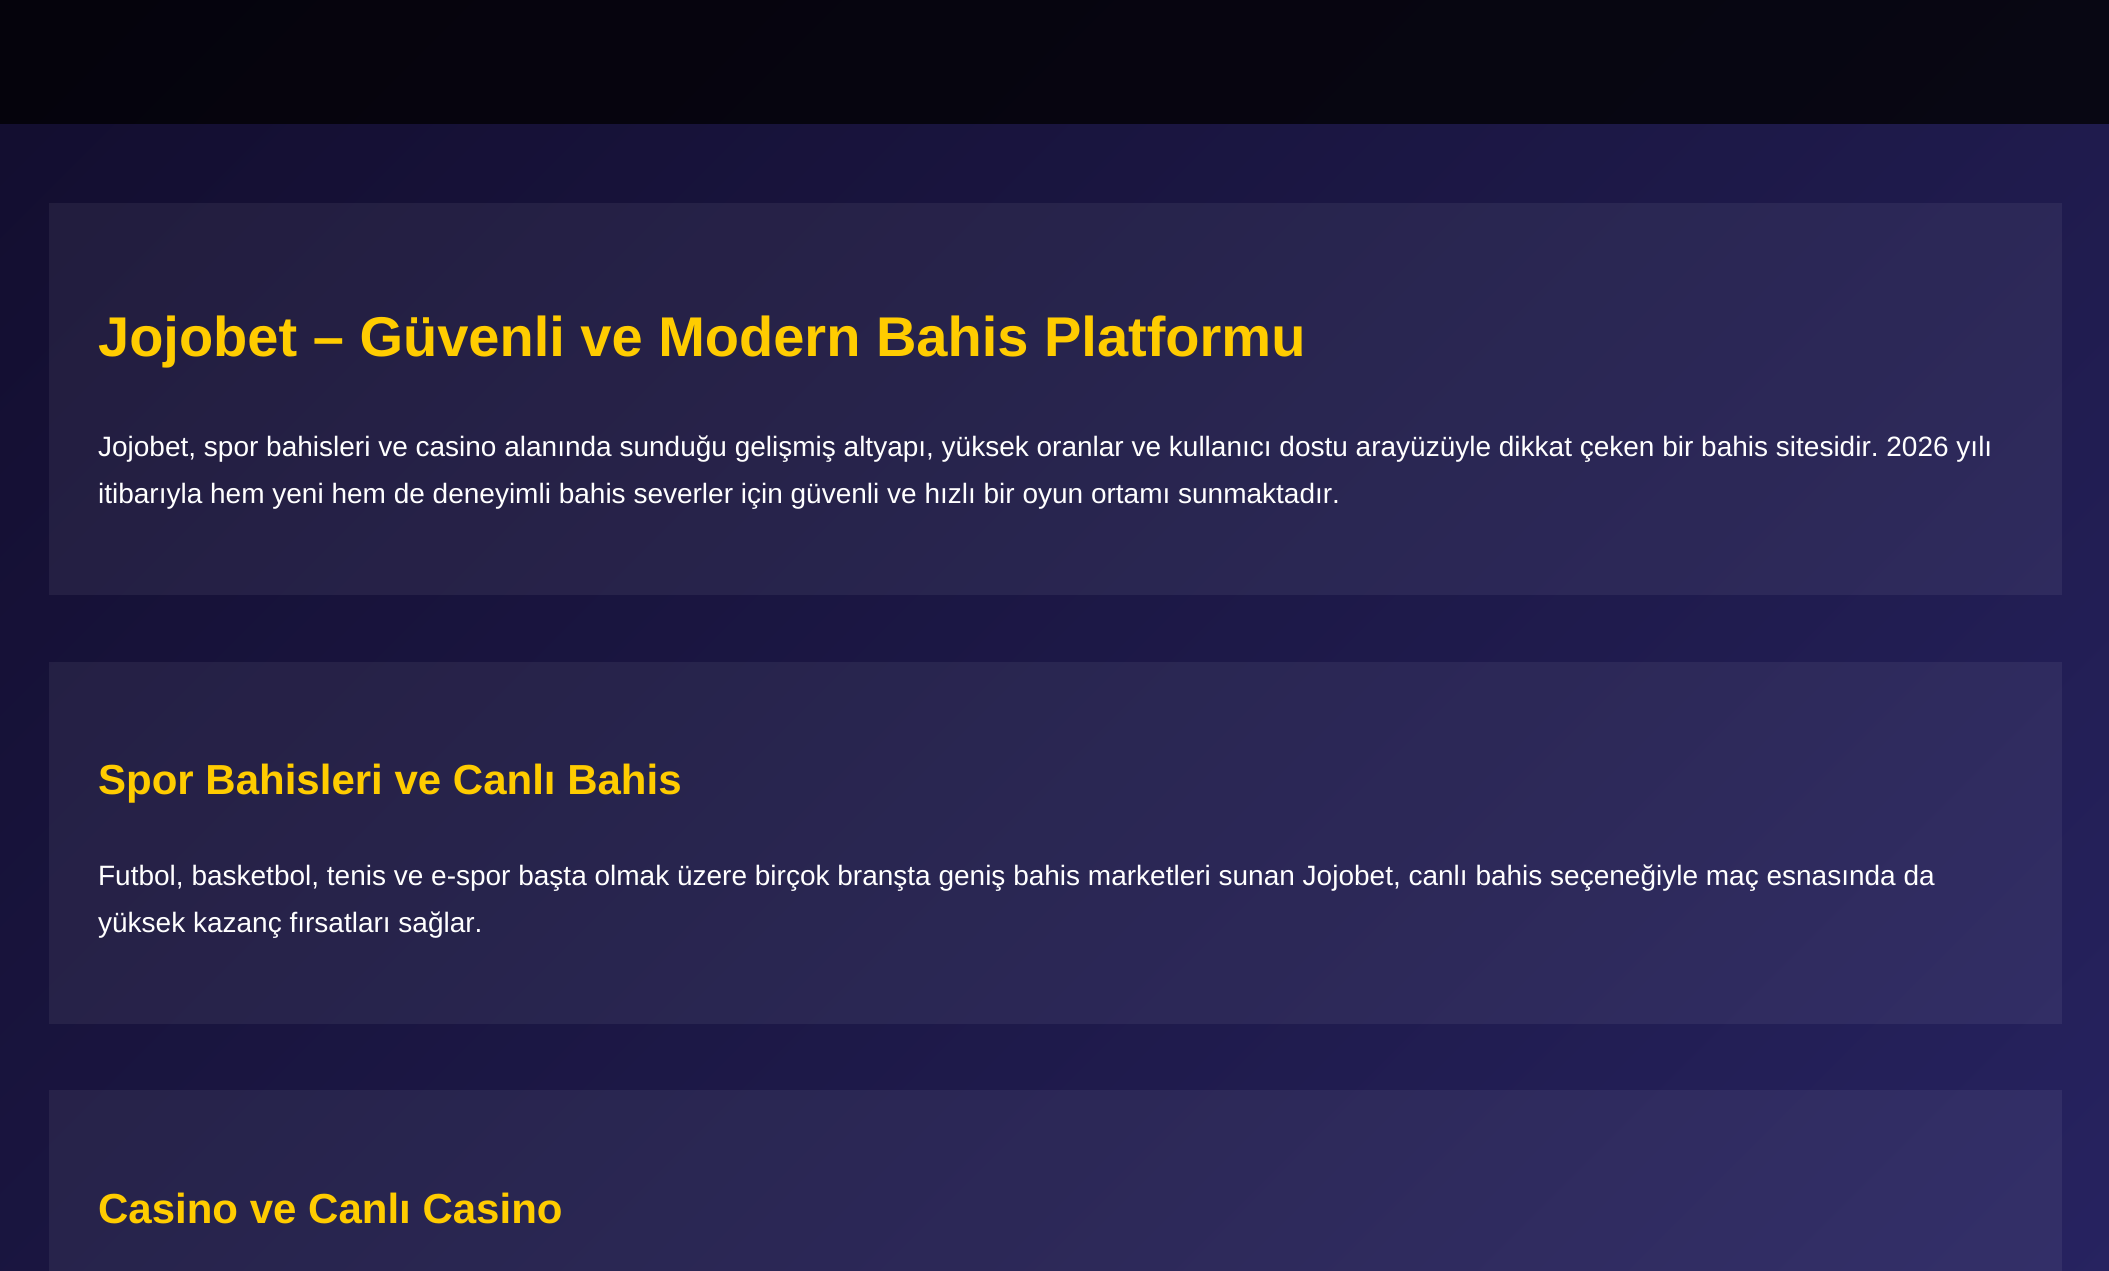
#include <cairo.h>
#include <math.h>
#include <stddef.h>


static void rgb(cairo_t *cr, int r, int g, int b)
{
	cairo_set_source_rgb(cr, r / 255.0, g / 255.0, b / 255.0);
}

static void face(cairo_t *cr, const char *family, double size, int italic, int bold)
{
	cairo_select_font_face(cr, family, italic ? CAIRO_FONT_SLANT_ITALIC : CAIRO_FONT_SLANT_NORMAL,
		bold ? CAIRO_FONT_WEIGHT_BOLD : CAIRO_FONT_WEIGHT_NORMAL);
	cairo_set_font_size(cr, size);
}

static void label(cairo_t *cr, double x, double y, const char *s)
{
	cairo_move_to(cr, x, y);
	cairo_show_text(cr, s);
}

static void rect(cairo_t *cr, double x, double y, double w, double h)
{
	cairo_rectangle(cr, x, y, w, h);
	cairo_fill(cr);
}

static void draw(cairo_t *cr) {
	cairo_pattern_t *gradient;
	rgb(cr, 255, 255, 255);
	cairo_paint(cr);
	gradient = cairo_pattern_create_linear(-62, 62, 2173, 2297);
	cairo_pattern_add_color_stop_rgba(gradient, 0, 0.071, 0.051, 0.18, 1);
	cairo_pattern_add_color_stop_rgba(gradient, 0.5, 0.122, 0.106, 0.302, 1);
	cairo_pattern_add_color_stop_rgba(gradient, 1, 0.18, 0.165, 0.447, 1);
	cairo_set_source(cr, gradient);
	cairo_pattern_destroy(gradient);
	rect(cr, 0, 124, 2109, 1147);
	gradient = cairo_pattern_create_linear(-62, 62, 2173, 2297);
	cairo_pattern_add_color_stop_rgba(gradient, 0, 0.02, 0.012, 0.047, 1);
	cairo_pattern_add_color_stop_rgba(gradient, 0.5, 0.031, 0.027, 0.075, 1);
	cairo_pattern_add_color_stop_rgba(gradient, 1, 0.047, 0.043, 0.114, 1);
	cairo_set_source(cr, gradient);
	cairo_pattern_destroy(gradient);
	rect(cr, 0, 0, 2109, 124);
	cairo_set_source_rgba(cr, 1, 1, 1, 0.06);
	rect(cr, 49, 203, 2013, 392);
	face(cr, "Liberation Sans", 56, 0, 1);
	rgb(cr, 255, 204, 0);
	label(cr, 98, 356, "Jojobet – Güvenli ve Modern Bahis Platformu");
	face(cr, "Liberation Sans", 28, 0, 0);
	rgb(cr, 255, 255, 255);
	label(cr, 98, 456, "Jojobet, spor bahisleri ve casino alanında sunduğu gelişmiş altyapı, yüksek oranlar ve kullanıcı dostu arayüzüyle dikkat çeken bir bahis sitesidir. 2026 yılı");
	label(cr, 98, 503, "itibarıyla hem yeni hem de deneyimli bahis severler için güvenli ve hızlı bir oyun ortamı sunmaktadır.");
	cairo_set_source_rgba(cr, 1, 1, 1, 0.06);
	rect(cr, 49, 662, 2013, 362);
	face(cr, "Liberation Sans", 42, 0, 1);
	rgb(cr, 255, 204, 0);
	label(cr, 98, 794, "Spor Bahisleri ve Canlı Bahis");
	face(cr, "Liberation Sans", 28, 0, 0);
	rgb(cr, 255, 255, 255);
	label(cr, 98, 885, "Futbol, basketbol, tenis ve e-spor başta olmak üzere birçok branşta geniş bahis marketleri sunan Jojobet, canlı bahis seçeneğiyle maç esnasında da");
	label(cr, 98, 932, "yüksek kazanç fırsatları sağlar.");
	cairo_set_source_rgba(cr, 1, 1, 1, 0.06);
	rect(cr, 49, 1090, 2013, 181);
	face(cr, "Liberation Sans", 42, 0, 1);
	rgb(cr, 255, 204, 0);
	label(cr, 98, 1223, "Casino ve Canlı Casino");
}

int main(void) {
	cairo_surface_t *surface = cairo_image_surface_create(CAIRO_FORMAT_RGB24, 2109, 1271);
	cairo_t *cr = cairo_create(surface);
	cairo_font_options_t *options = cairo_font_options_create();
	cairo_font_options_set_hint_metrics(options, CAIRO_HINT_METRICS_OFF);
	cairo_font_options_set_hint_style(options, CAIRO_HINT_STYLE_NONE);
	cairo_set_font_options(cr, options);
	cairo_set_miter_limit(cr, 4);
	draw(cr);
	cairo_surface_write_to_png(surface, "render.png");
	cairo_font_options_destroy(options);
	cairo_destroy(cr);
	cairo_surface_destroy(surface);
	return 0;
}
